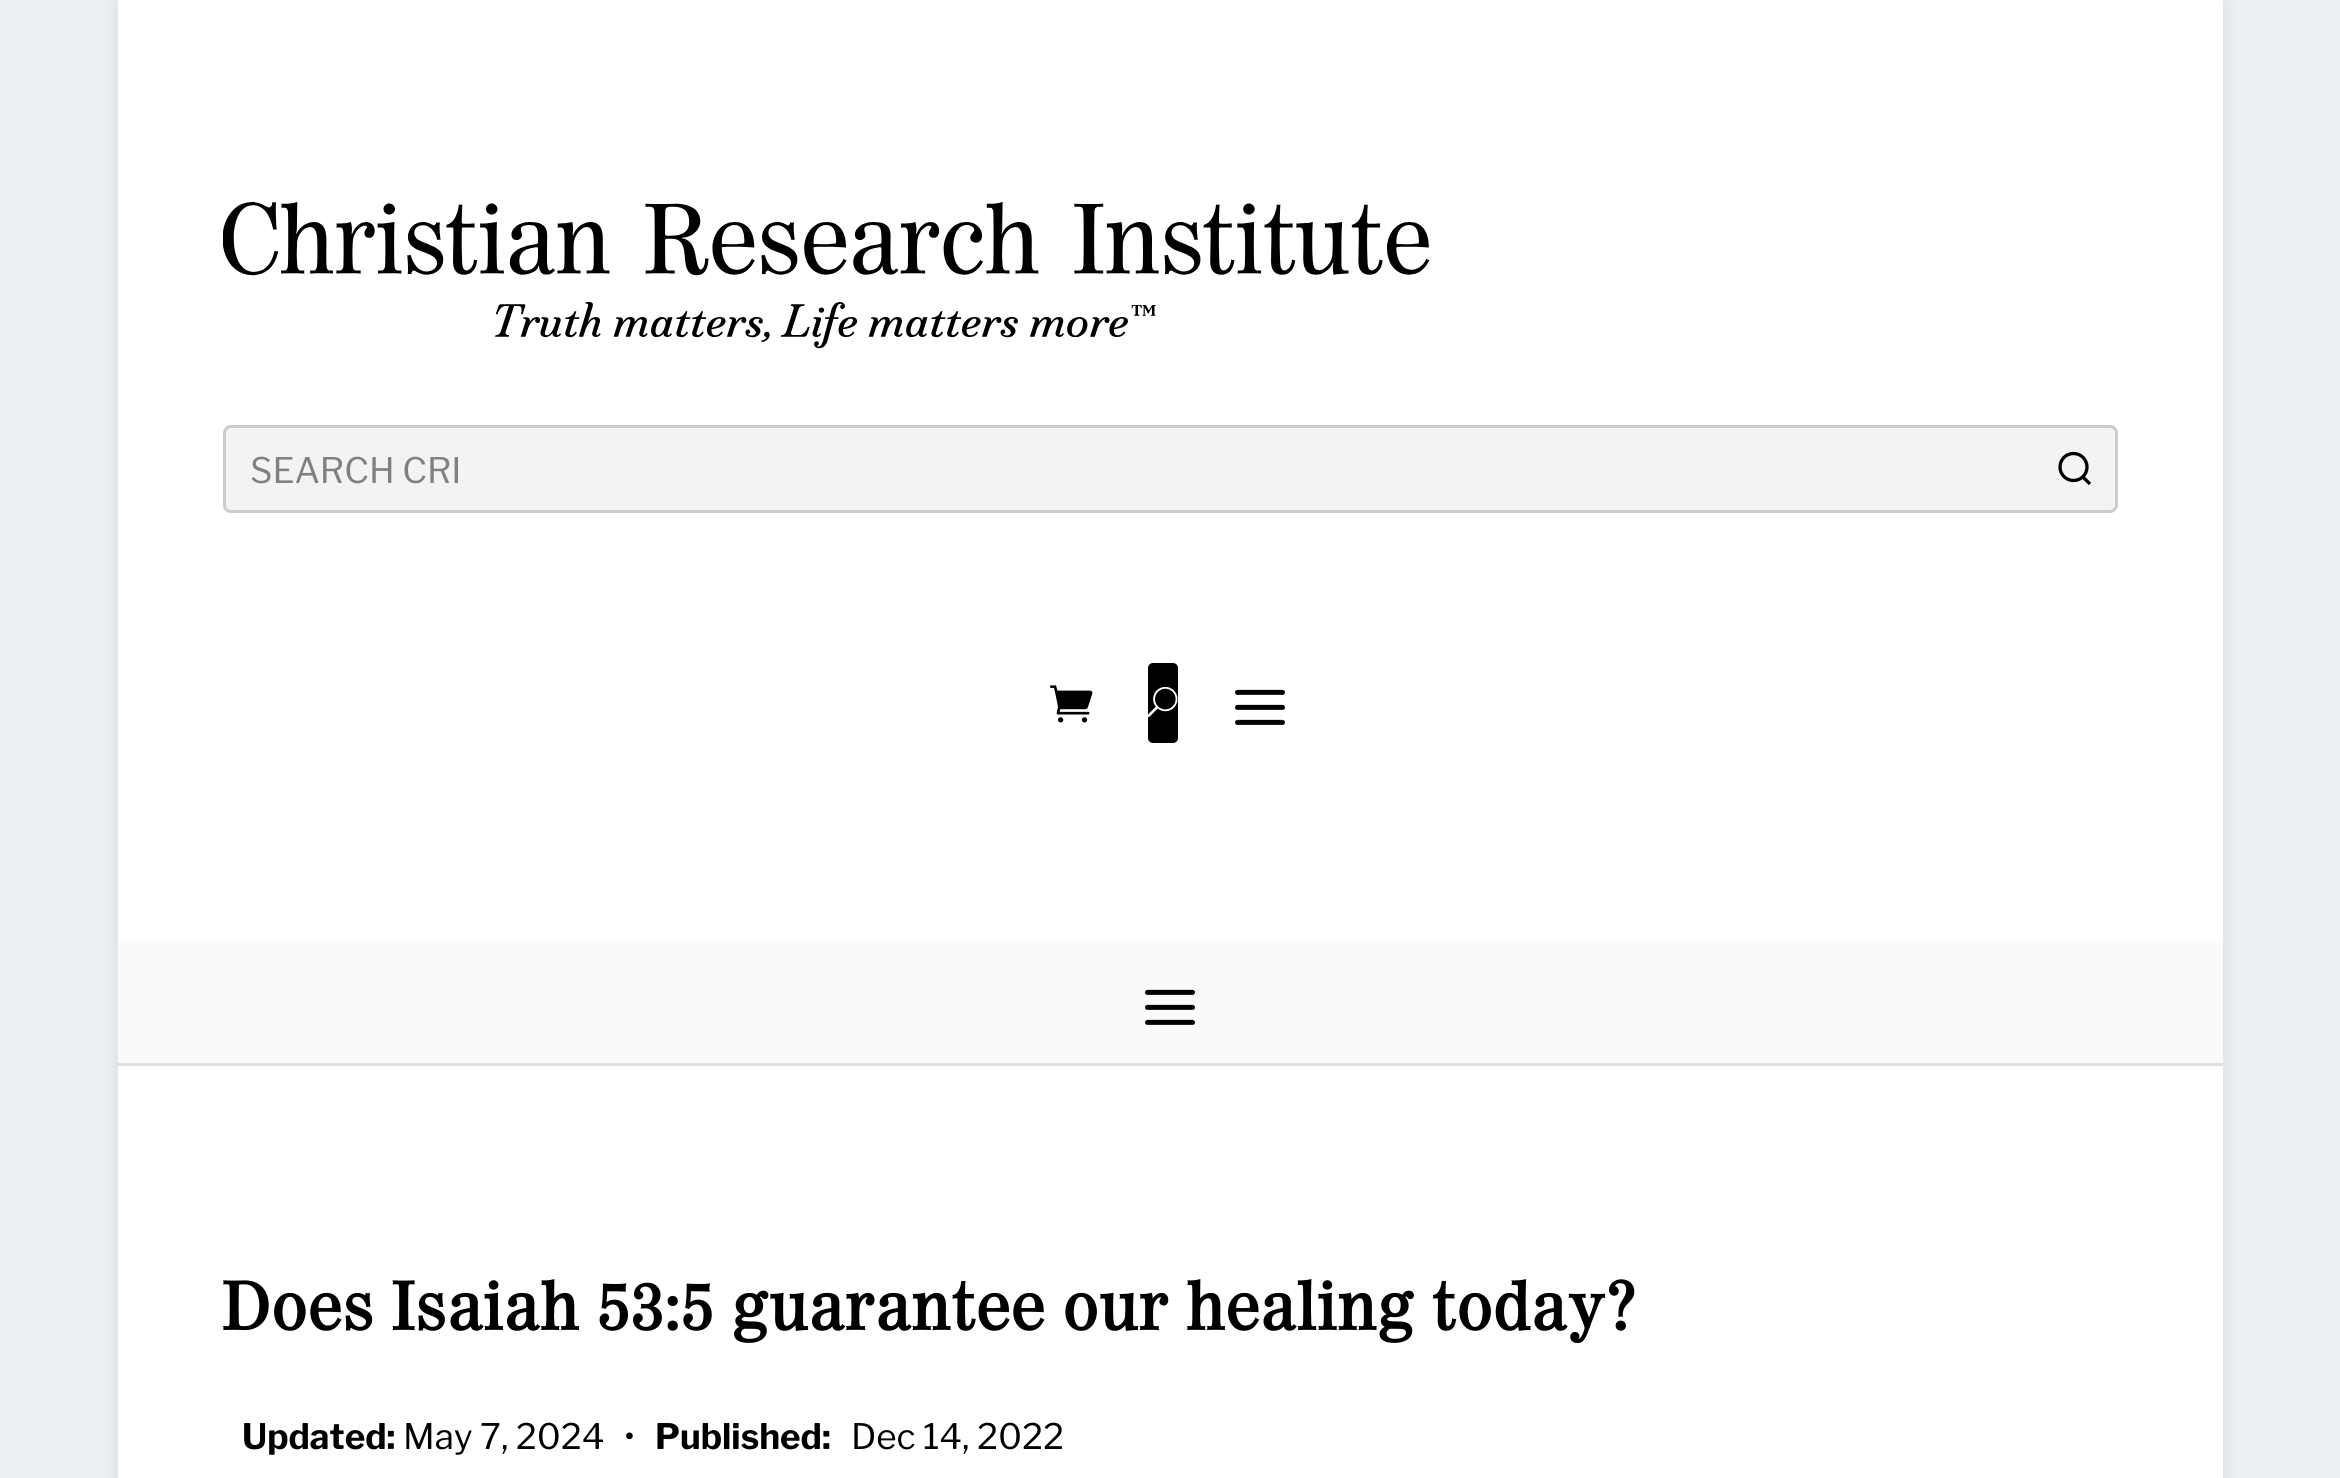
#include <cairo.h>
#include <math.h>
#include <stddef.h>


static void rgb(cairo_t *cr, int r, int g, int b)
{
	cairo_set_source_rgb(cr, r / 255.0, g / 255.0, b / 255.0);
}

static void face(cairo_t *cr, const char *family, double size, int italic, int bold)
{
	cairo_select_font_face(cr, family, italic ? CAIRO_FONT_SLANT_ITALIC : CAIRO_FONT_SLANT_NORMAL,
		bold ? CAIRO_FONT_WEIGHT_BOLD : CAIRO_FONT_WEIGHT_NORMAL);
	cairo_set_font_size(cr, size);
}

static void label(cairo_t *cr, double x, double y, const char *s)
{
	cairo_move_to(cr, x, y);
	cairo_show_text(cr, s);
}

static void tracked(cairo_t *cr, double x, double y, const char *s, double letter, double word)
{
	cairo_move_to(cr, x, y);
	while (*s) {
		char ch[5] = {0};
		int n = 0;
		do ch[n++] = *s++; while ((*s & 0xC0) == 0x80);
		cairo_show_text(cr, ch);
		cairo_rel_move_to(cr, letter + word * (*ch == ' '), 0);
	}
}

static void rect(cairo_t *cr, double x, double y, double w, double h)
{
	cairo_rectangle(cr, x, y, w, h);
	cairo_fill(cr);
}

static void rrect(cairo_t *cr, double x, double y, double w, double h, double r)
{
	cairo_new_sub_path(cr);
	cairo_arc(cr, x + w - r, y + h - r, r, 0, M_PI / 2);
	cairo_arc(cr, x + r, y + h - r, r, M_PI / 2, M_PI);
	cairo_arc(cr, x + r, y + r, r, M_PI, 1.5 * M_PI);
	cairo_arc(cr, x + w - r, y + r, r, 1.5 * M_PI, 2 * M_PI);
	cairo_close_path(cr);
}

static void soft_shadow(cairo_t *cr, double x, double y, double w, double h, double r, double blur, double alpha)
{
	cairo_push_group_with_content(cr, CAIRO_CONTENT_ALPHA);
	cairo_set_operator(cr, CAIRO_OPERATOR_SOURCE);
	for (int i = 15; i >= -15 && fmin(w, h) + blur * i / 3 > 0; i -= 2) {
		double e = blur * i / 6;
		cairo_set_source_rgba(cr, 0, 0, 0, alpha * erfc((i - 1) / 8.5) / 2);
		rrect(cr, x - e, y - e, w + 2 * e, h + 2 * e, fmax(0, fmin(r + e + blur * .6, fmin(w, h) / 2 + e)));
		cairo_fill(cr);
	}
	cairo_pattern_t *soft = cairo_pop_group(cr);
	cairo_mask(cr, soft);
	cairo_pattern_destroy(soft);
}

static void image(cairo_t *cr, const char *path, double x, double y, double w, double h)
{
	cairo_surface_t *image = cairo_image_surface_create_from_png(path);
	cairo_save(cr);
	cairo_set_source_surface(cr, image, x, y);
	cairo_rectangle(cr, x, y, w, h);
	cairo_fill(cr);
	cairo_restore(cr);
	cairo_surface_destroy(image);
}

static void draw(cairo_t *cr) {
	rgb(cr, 236, 240, 245);
	cairo_paint(cr);
	rgb(cr, 0, 0, 0);
	soft_shadow(cr, 118, 3, 2105, 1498, 0, 7.5, 0.1);
	rgb(cr, 255, 255, 255);
	rect(cr, 118, 0, 2105, 1478);
	image(cr, "image0.png", 223, 202, 1207, 147);
	rgb(cr, 243, 243, 243);
	rrect(cr, 224.5, 426.5, 1892, 85, 6.5);
	cairo_fill_preserve(cr);
	rgb(cr, 204, 204, 204);
	cairo_set_line_width(cr, 3);
	cairo_stroke(cr);
	face(cr, "Libre Franklin", 35, 0, 0);
	rgb(cr, 128, 128, 128);
	label(cr, 250, 483, "SEARCH CRI");
	cairo_new_path(cr);
	cairo_arc(cr, 2073.5, 467, 13.5, 0, 2 * M_PI);
	rgb(cr, 0, 0, 0);
	cairo_set_line_width(cr, 3.3);
	cairo_stroke(cr);
	cairo_new_path(cr);
	cairo_move_to(cr, 2090, 484);
	cairo_line_to(cr, 2082.5, 476.5);
	cairo_stroke(cr);
	image(cr, "image1.png", 1049, 685, 44, 38);
	rrect(cr, 1148, 663, 30, 80, 5);
	cairo_fill(cr);
	image(cr, "image2.png", 1148, 686, 30, 31);
	image(cr, "image3.png", 1235, 689, 50, 36);
	rgb(cr, 250, 250, 250);
	rect(cr, 118, 943, 2105, 120);
	rgb(cr, 223, 223, 223);
	rect(cr, 118, 1063, 2105, 3);
	image(cr, "image4.png", 1145, 989, 50, 36);
	face(cr, "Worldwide", 65, 0, 1);
	rgb(cr, 0, 0, 0);
	tracked(cr, 222, 1330, "Does Isaiah 53:5 guarantee our healing today?", 1.25, 0);
	face(cr, "Libre Franklin", 35, 0, 1);
	label(cr, 242, 1449, "Updated:");
	face(cr, "Libre Franklin", 35, 0, 0);
	label(cr, 403, 1449, "May 7, 2024");
	label(cr, 624, 1449, "•");
	face(cr, "Libre Franklin", 35, 0, 1);
	label(cr, 655, 1449, "Published:");
	face(cr, "Libre Franklin", 35, 0, 0);
	label(cr, 851, 1449, "Dec 14, 2022");
}

int main(void) {
	cairo_surface_t *surface = cairo_image_surface_create(CAIRO_FORMAT_RGB24, 2340, 1478);
	cairo_t *cr = cairo_create(surface);
	cairo_font_options_t *options = cairo_font_options_create();
	cairo_font_options_set_hint_metrics(options, CAIRO_HINT_METRICS_OFF);
	cairo_font_options_set_hint_style(options, CAIRO_HINT_STYLE_NONE);
	cairo_set_font_options(cr, options);
	cairo_set_miter_limit(cr, 4);
	draw(cr);
	cairo_surface_write_to_png(surface, "render.png");
	cairo_font_options_destroy(options);
	cairo_destroy(cr);
	cairo_surface_destroy(surface);
	return 0;
}
